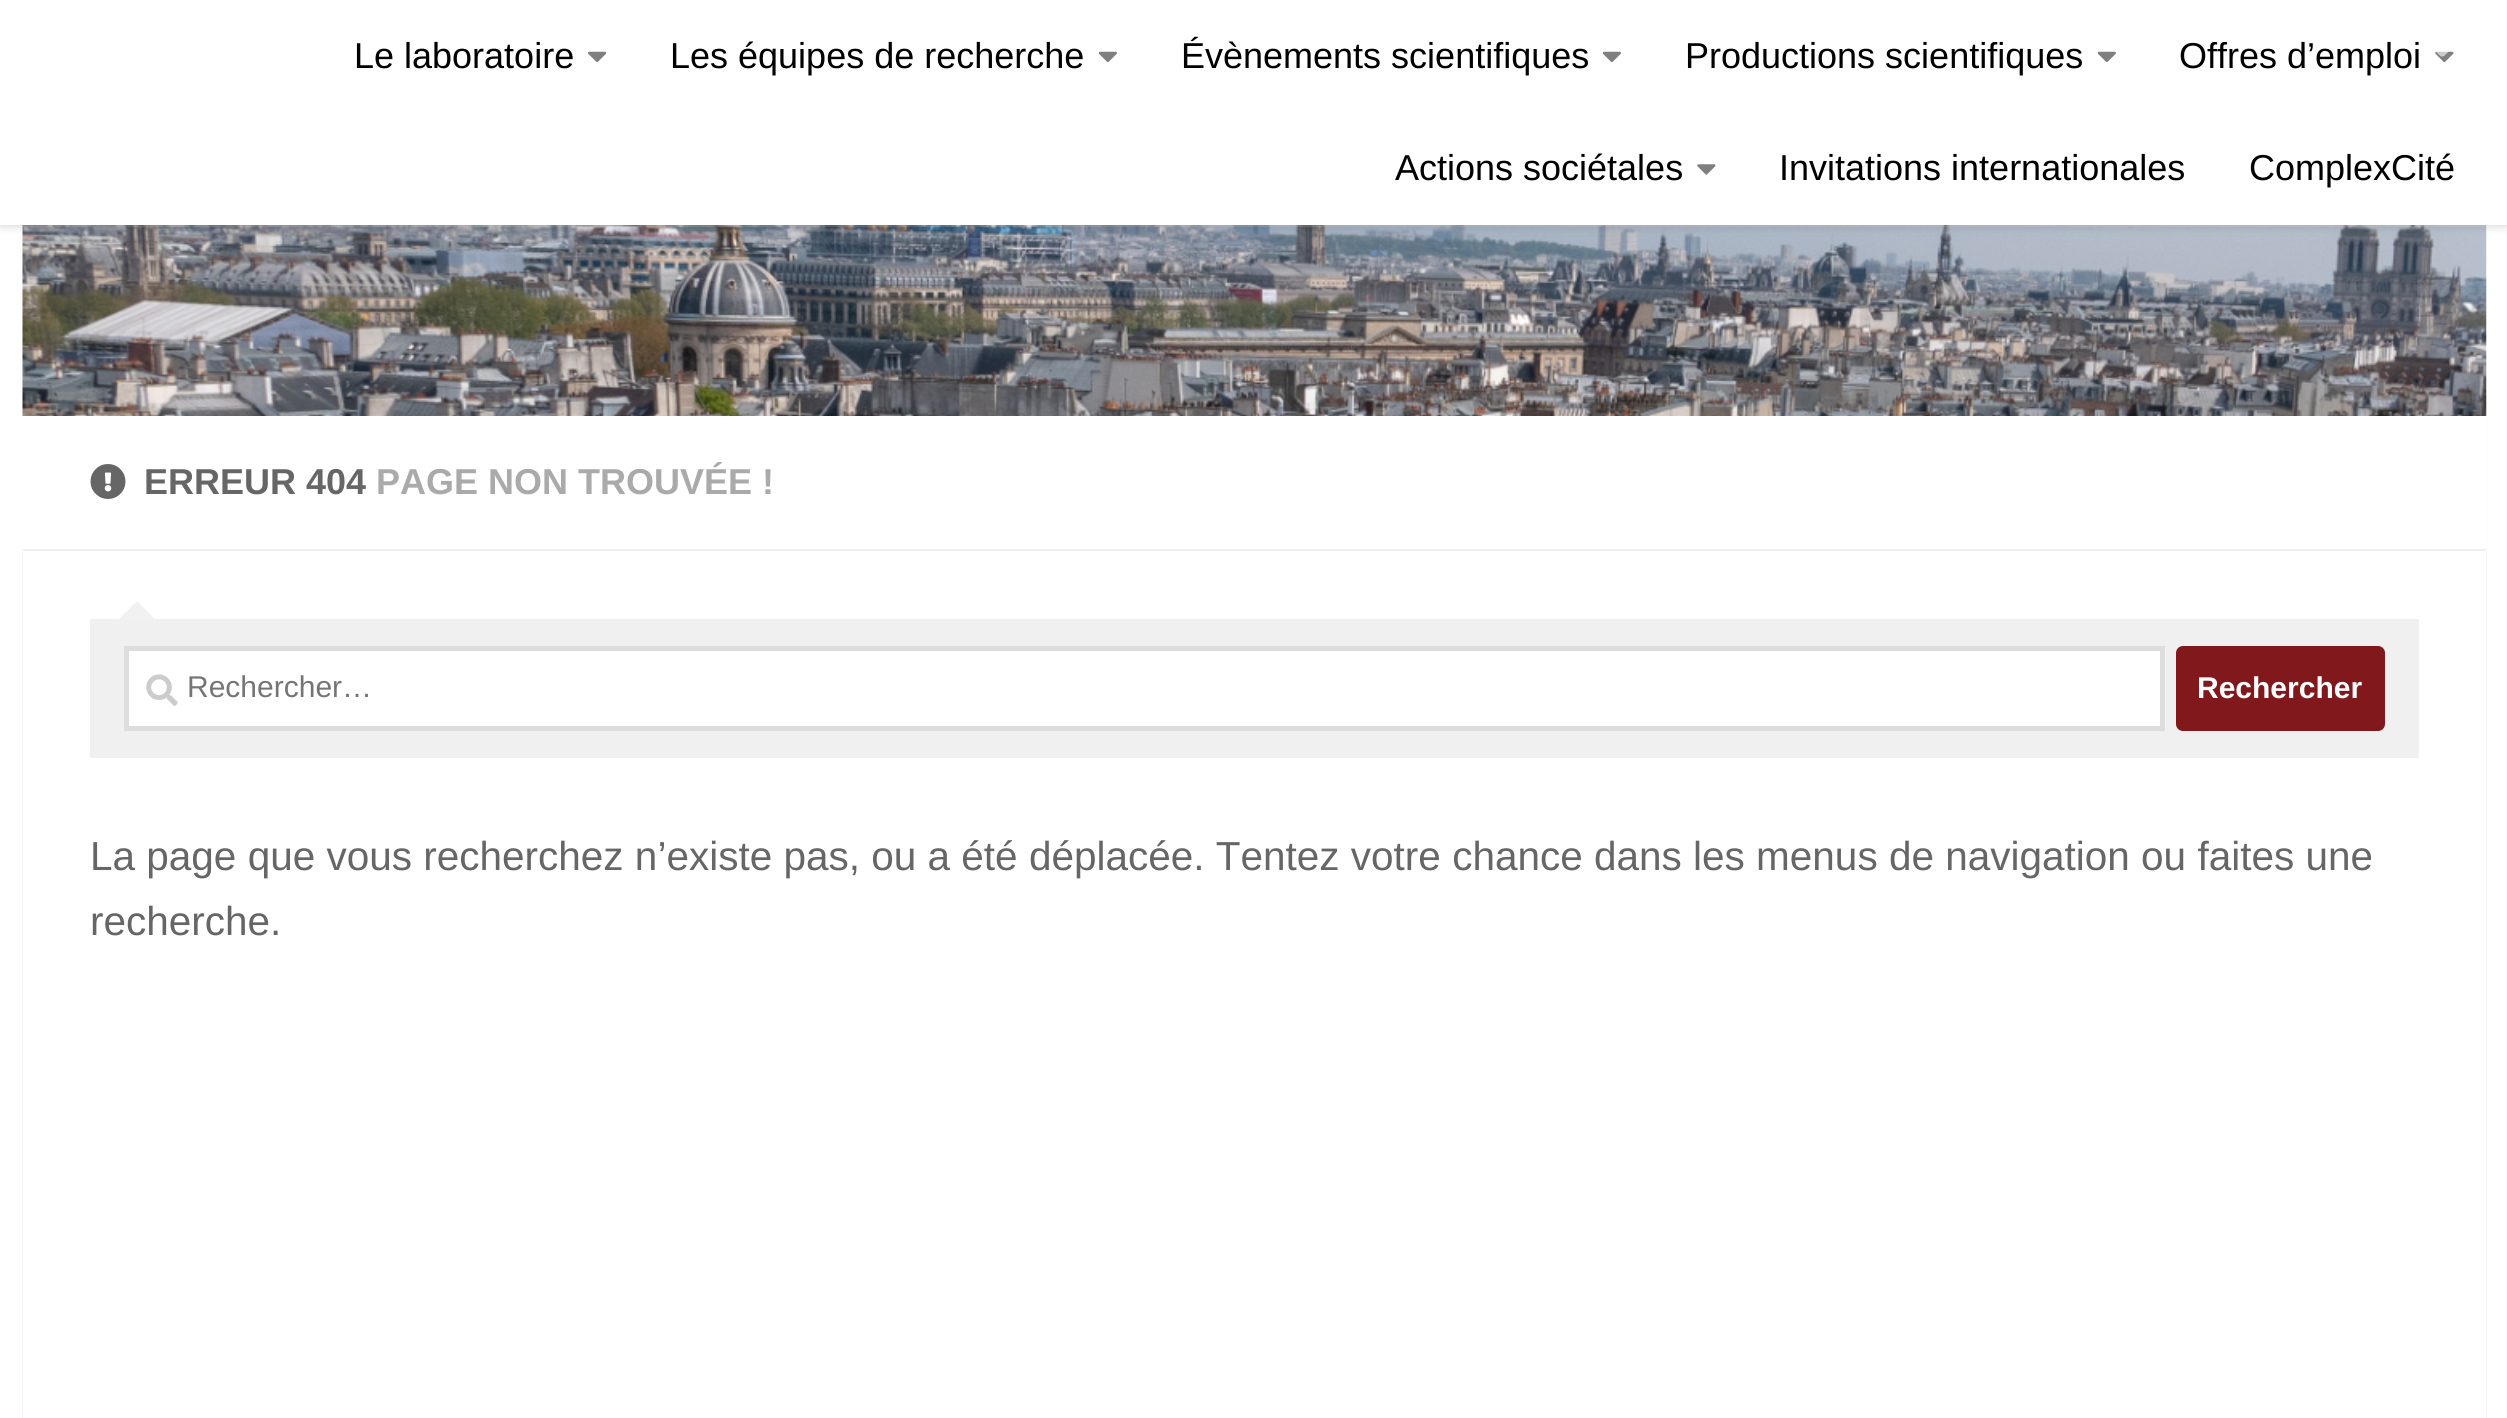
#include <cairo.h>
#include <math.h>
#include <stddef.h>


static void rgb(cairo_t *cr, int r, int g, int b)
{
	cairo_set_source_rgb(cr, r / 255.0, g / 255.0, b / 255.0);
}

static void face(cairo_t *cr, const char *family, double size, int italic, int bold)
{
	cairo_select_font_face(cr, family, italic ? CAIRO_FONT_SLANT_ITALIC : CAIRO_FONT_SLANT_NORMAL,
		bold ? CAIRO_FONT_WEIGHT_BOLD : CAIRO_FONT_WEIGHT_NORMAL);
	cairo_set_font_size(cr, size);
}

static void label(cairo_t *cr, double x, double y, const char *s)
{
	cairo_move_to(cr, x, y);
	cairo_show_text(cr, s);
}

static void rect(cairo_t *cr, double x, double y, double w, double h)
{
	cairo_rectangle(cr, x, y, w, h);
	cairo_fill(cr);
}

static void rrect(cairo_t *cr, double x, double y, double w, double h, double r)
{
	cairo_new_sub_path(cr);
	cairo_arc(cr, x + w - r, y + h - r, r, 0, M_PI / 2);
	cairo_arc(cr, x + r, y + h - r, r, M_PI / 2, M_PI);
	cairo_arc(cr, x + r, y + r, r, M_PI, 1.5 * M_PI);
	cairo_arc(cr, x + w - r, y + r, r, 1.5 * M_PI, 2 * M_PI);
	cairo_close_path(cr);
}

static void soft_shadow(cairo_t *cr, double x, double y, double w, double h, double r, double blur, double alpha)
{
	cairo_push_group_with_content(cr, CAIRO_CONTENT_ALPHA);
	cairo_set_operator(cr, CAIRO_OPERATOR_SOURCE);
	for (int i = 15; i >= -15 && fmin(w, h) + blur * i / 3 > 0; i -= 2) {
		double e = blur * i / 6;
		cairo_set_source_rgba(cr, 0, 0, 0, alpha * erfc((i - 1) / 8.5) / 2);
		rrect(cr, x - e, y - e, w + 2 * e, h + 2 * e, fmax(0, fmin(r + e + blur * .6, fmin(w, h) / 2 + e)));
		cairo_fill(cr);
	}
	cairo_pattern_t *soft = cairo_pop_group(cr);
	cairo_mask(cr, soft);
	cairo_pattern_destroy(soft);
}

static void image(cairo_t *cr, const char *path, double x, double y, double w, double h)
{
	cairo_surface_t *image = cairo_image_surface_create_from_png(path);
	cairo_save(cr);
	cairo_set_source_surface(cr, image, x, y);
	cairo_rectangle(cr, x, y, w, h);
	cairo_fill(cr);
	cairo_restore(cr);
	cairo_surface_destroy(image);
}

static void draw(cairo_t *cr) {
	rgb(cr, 255, 255, 255);
	cairo_paint(cr);
	rgb(cr, 0, 0, 0);
	soft_shadow(cr, 23, 419, 2463, 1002, 0, 1, 0.1);
	rgb(cr, 255, 255, 255);
	rect(cr, 22, 418, 2465, 133);
	image(cr, "image5.png", 22, 225, 2465, 192);
	cairo_set_source_rgba(cr, 1, 1, 1, 0.15);
	cairo_new_path(cr);
	cairo_move_to(cr, 0, 225);
	cairo_line_to(cr, 0, 227);
	cairo_line_to(cr, 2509, 227);
	cairo_line_to(cr, 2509, 2);
	cairo_line_to(cr, 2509, 225);
	cairo_close_path(cr);
	cairo_fill(cr);
	rgb(cr, 0, 0, 0);
	soft_shadow(cr, 0, 0, 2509, 225, 0, 5.5, 0.2);
	rgb(cr, 255, 255, 255);
	rect(cr, 0, 0, 2507, 225);
	face(cr, "Liberation Sans", 36, 0, 0);
	rgb(cr, 0, 0, 0);
	label(cr, 354, 68, "Le laboratoire");
	image(cr, "image0.png", 588, 51, 19, 12);
	label(cr, 670, 68, "Les équipes de recherche");
	image(cr, "image1.png", 1098, 51, 19, 12);
	label(cr, 1181, 68, "Évènements scientifiques");
	image(cr, "image1.png", 1602, 51, 19, 12);
	label(cr, 1685, 68, "Productions scientifiques");
	image(cr, "image1.png", 2097, 51, 19, 12);
	label(cr, 2179, 68, "Offres d’emploi");
	image(cr, "image2.png", 2435, 51, 19, 12);
	label(cr, 1395, 180, "Actions sociétales");
	image(cr, "image3.png", 1697, 164, 19, 11);
	label(cr, 1779, 180, "Invitations internationales");
	label(cr, 2249, 180, "ComplexCité");
	image(cr, "image4.png", 2436, 51, 13, 6);
	rgb(cr, 255, 255, 255);
	rect(cr, 23, 416, 2463, 1002);
	rgb(cr, 238, 238, 238);
	rect(cr, 23, 549, 2463, 2);
	image(cr, "image6.png", 90, 464, 36, 35);
	face(cr, "Liberation Sans", 36, 0, 1);
	rgb(cr, 102, 102, 102);
	label(cr, 144, 494, "ERREUR 404");
	rgb(cr, 170, 170, 170);
	label(cr, 376, 494, "PAGE NON TROUVÉE !");
	rgb(cr, 240, 240, 240);
	rect(cr, 90, 619, 2329, 139);
	rgb(cr, 241, 241, 241);
	cairo_new_path(cr);
	cairo_move_to(cr, 155, 619);
	cairo_line_to(cr, 119, 619);
	cairo_line_to(cr, 137, 601);
	cairo_close_path(cr);
	cairo_fill(cr);
	rgb(cr, 255, 255, 255);
	cairo_rectangle(cr, 126.5, 648.5, 2036, 80);
	cairo_fill_preserve(cr);
	rgb(cr, 221, 221, 221);
	cairo_set_line_width(cr, 5);
	cairo_stroke(cr);
	image(cr, "image7.png", 146, 674, 32, 32);
	face(cr, "Liberation Sans", 30, 0, 0);
	rgb(cr, 117, 117, 117);
	label(cr, 187, 697, "Rechercher…");
	rgb(cr, 129, 24, 27);
	rrect(cr, 2176, 646, 209, 85, 7);
	cairo_fill(cr);
	face(cr, "Liberation Sans", 30, 0, 1);
	rgb(cr, 255, 255, 255);
	label(cr, 2197, 698, "Rechercher");
	face(cr, "Liberation Sans", 40.5, 0, 0);
	rgb(cr, 102, 102, 102);
	label(cr, 90, 870, "La page que vous recherchez n’existe pas, ou a été déplacée. Tentez votre chance dans les menus de navigation ou faites une");
	label(cr, 90, 935, "recherche.");
}

int main(void) {
	cairo_surface_t *surface = cairo_image_surface_create(CAIRO_FORMAT_RGB24, 2507, 1418);
	cairo_t *cr = cairo_create(surface);
	cairo_font_options_t *options = cairo_font_options_create();
	cairo_font_options_set_hint_metrics(options, CAIRO_HINT_METRICS_OFF);
	cairo_font_options_set_hint_style(options, CAIRO_HINT_STYLE_NONE);
	cairo_set_font_options(cr, options);
	cairo_set_miter_limit(cr, 4);
	draw(cr);
	cairo_surface_write_to_png(surface, "render.png");
	cairo_font_options_destroy(options);
	cairo_destroy(cr);
	cairo_surface_destroy(surface);
	return 0;
}
